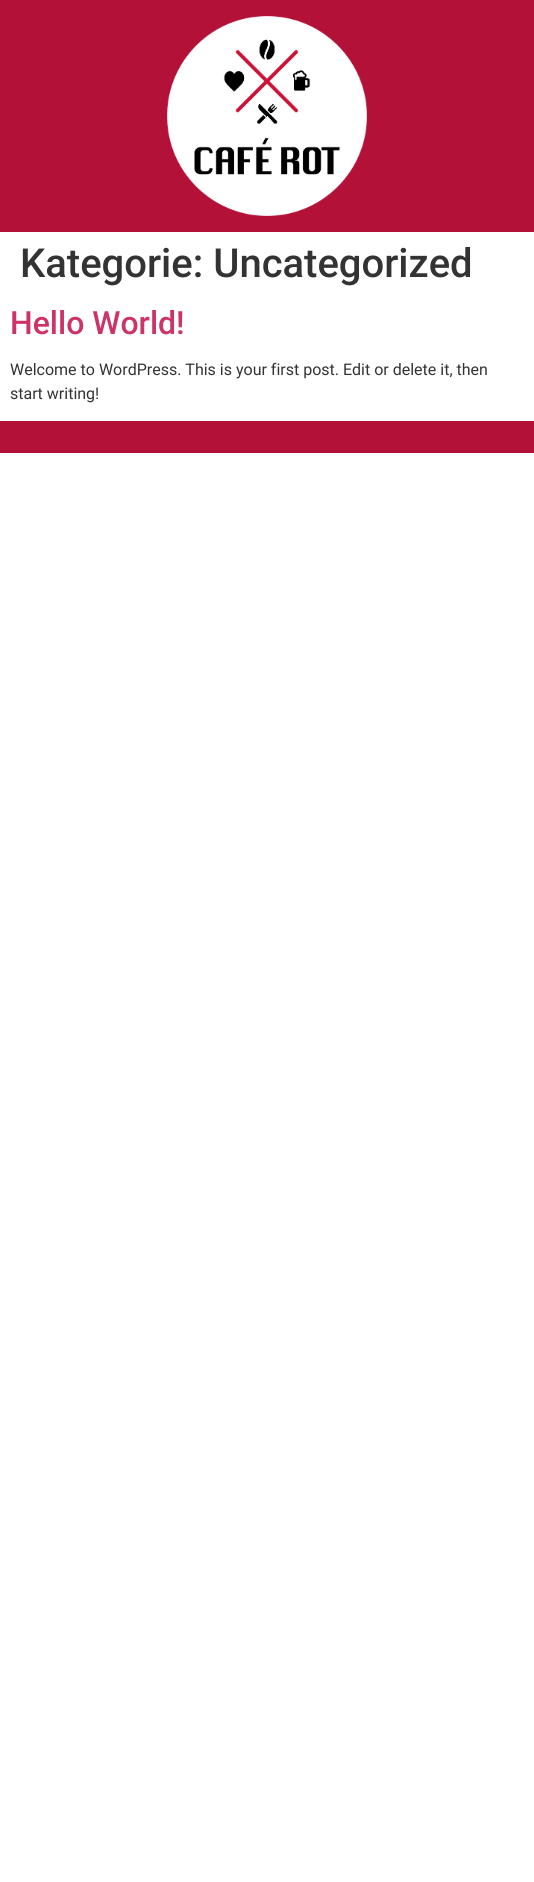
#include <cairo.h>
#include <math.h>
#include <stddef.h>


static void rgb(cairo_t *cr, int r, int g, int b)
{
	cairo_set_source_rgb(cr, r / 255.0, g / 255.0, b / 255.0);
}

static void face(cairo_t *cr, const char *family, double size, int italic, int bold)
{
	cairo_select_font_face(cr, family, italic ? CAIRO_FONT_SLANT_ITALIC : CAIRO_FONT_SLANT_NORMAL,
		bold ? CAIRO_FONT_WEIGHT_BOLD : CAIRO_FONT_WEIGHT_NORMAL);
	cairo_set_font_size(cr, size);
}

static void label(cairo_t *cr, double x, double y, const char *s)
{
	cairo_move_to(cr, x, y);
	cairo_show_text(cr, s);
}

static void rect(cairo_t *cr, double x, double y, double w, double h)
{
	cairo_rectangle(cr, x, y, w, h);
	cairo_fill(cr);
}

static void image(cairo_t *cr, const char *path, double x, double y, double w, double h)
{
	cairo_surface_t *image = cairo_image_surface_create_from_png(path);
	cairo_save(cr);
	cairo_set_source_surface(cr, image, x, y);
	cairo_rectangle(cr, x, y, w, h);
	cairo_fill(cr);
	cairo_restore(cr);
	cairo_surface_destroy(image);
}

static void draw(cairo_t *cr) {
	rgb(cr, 255, 255, 255);
	cairo_paint(cr);
	rgb(cr, 179, 17, 55);
	rect(cr, 0, 0, 534, 232);
	image(cr, "image0.png", 167, 16, 200, 200);
	face(cr, "Roboto Medium", 40, 0, 0);
	rgb(cr, 51, 51, 51);
	label(cr, 20, 277, "Kategorie: Uncategorized");
	face(cr, "Roboto Medium", 32, 0, 0);
	rgb(cr, 204, 51, 102);
	label(cr, 10, 334, "Hello World!");
	face(cr, "Roboto", 16, 0, 0);
	rgb(cr, 51, 51, 51);
	label(cr, 10, 375, "Welcome to WordPress. This is your first post. Edit or delete it, then");
	label(cr, 10, 399, "start writing!");
	rgb(cr, 179, 17, 55);
	rect(cr, 0, 421, 534, 32);
}

int main(void) {
	cairo_surface_t *surface = cairo_image_surface_create(CAIRO_FORMAT_RGB24, 534, 1882);
	cairo_t *cr = cairo_create(surface);
	cairo_font_options_t *options = cairo_font_options_create();
	cairo_font_options_set_hint_metrics(options, CAIRO_HINT_METRICS_OFF);
	cairo_font_options_set_hint_style(options, CAIRO_HINT_STYLE_NONE);
	cairo_set_font_options(cr, options);
	cairo_set_miter_limit(cr, 4);
	draw(cr);
	cairo_surface_write_to_png(surface, "render.png");
	cairo_font_options_destroy(options);
	cairo_destroy(cr);
	cairo_surface_destroy(surface);
	return 0;
}
